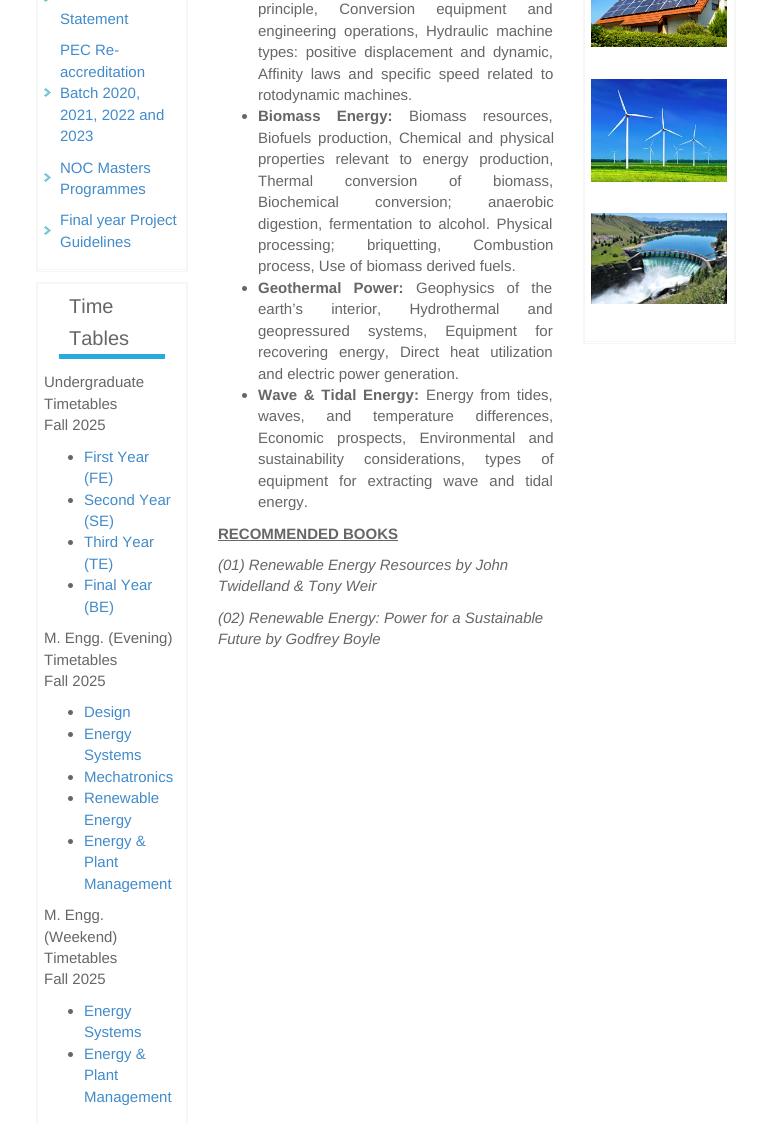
#include <cairo.h>
#include <math.h>
#include <stddef.h>


static void rgb(cairo_t *cr, int r, int g, int b)
{
	cairo_set_source_rgb(cr, r / 255.0, g / 255.0, b / 255.0);
}

static void face(cairo_t *cr, const char *family, double size, int italic, int bold)
{
	cairo_select_font_face(cr, family, italic ? CAIRO_FONT_SLANT_ITALIC : CAIRO_FONT_SLANT_NORMAL,
		bold ? CAIRO_FONT_WEIGHT_BOLD : CAIRO_FONT_WEIGHT_NORMAL);
	cairo_set_font_size(cr, size);
}

static void label(cairo_t *cr, double x, double y, const char *s)
{
	cairo_move_to(cr, x, y);
	cairo_show_text(cr, s);
}

static void tracked(cairo_t *cr, double x, double y, const char *s, double letter, double word)
{
	cairo_move_to(cr, x, y);
	while (*s) {
		char ch[5] = {0};
		int n = 0;
		do ch[n++] = *s++; while ((*s & 0xC0) == 0x80);
		cairo_show_text(cr, ch);
		cairo_rel_move_to(cr, letter + word * (*ch == ' '), 0);
	}
}

static void rect(cairo_t *cr, double x, double y, double w, double h)
{
	cairo_rectangle(cr, x, y, w, h);
	cairo_fill(cr);
}

static void image(cairo_t *cr, const char *path, double x, double y, double w, double h)
{
	cairo_surface_t *image = cairo_image_surface_create_from_png(path);
	cairo_save(cr);
	cairo_set_source_surface(cr, image, x, y);
	cairo_rectangle(cr, x, y, w, h);
	cairo_fill(cr);
	cairo_restore(cr);
	cairo_surface_destroy(image);
}

static void draw(cairo_t *cr) {
	rgb(cr, 255, 255, 255);
	cairo_paint(cr);
	rgb(cr, 246, 246, 246);
	rect(cr, 186, 0, 2, 272);
	rect(cr, 36, 269, 152, 1);
	rect(cr, 36, 271, 152, 1);
	rect(cr, 36, 0, 2, 272);
	image(cr, "image0.png", 44, 0, 4, 2);
	face(cr, "Liberation Sans", 15, 0, 0);
	rgb(cr, 66, 139, 202);
	label(cr, 60, 24, "Statement");
	image(cr, "image1.png", 44, 88, 7, 9);
	label(cr, 60, 55, "PEC Re-");
	label(cr, 60, 77, "accreditation");
	label(cr, 60, 98, "Batch 2020,");
	label(cr, 60, 120, "2021, 2022 and");
	label(cr, 60, 141, "2023");
	image(cr, "image1.png", 44, 173, 7, 9);
	label(cr, 60, 173, "NOC Masters");
	label(cr, 60, 194, "Programmes");
	image(cr, "image1.png", 44, 226, 7, 9);
	label(cr, 60, 225, "Final year Project");
	label(cr, 60, 247, "Guidelines");
	rgb(cr, 246, 246, 246);
	rect(cr, 36, 282, 152, 2);
	rect(cr, 186, 282, 2, 841);
	rect(cr, 36, 282, 2, 841);
	rgb(cr, 41, 169, 223);
	rect(cr, 59, 354, 106, 5);
	face(cr, "Liberation Sans", 20, 0, 0);
	rgb(cr, 102, 102, 102);
	label(cr, 69, 313, "Time");
	label(cr, 69, 345, "Tables");
	face(cr, "Liberation Sans", 15, 0, 0);
	label(cr, 44, 387, "Undergraduate");
	label(cr, 44, 409, "Timetables");
	label(cr, 44, 430, "Fall 2025");
	cairo_new_path(cr);
	cairo_arc(cr, 70.5, 457.5, 2.5, 0, 2 * M_PI);
	cairo_fill(cr);
	rgb(cr, 66, 139, 202);
	label(cr, 84, 462, "First Year");
	label(cr, 84, 483, "(FE)");
	rgb(cr, 102, 102, 102);
	cairo_new_path(cr);
	cairo_arc(cr, 70.5, 500.5, 2.5, 0, 2 * M_PI);
	cairo_fill(cr);
	rgb(cr, 66, 139, 202);
	label(cr, 84, 505, "Second Year");
	label(cr, 84, 526, "(SE)");
	rgb(cr, 102, 102, 102);
	cairo_new_path(cr);
	cairo_arc(cr, 70.5, 542.5, 2.5, 0, 2 * M_PI);
	cairo_fill(cr);
	rgb(cr, 66, 139, 202);
	label(cr, 84, 547, "Third Year");
	label(cr, 84, 569, "(TE)");
	rgb(cr, 102, 102, 102);
	cairo_new_path(cr);
	cairo_arc(cr, 70.5, 585.5, 2.5, 0, 2 * M_PI);
	cairo_fill(cr);
	rgb(cr, 66, 139, 202);
	label(cr, 84, 590, "Final Year");
	label(cr, 84, 612, "(BE)");
	rgb(cr, 102, 102, 102);
	label(cr, 44, 643, "M. Engg. (Evening)");
	label(cr, 44, 665, "Timetables");
	label(cr, 44, 686, "Fall 2025");
	cairo_new_path(cr);
	cairo_arc(cr, 70.5, 712.5, 2.5, 0, 2 * M_PI);
	cairo_fill(cr);
	rgb(cr, 66, 139, 202);
	label(cr, 84, 717, "Design");
	rgb(cr, 102, 102, 102);
	cairo_new_path(cr);
	cairo_arc(cr, 70.5, 734.5, 2.5, 0, 2 * M_PI);
	cairo_fill(cr);
	rgb(cr, 66, 139, 202);
	label(cr, 84, 739, "Energy");
	label(cr, 84, 760, "Systems");
	rgb(cr, 102, 102, 102);
	cairo_new_path(cr);
	cairo_arc(cr, 70.5, 777.5, 2.5, 0, 2 * M_PI);
	cairo_fill(cr);
	rgb(cr, 66, 139, 202);
	label(cr, 84, 782, "Mechatronics");
	rgb(cr, 102, 102, 102);
	cairo_new_path(cr);
	cairo_arc(cr, 70.5, 798.5, 2.5, 0, 2 * M_PI);
	cairo_fill(cr);
	rgb(cr, 66, 139, 202);
	label(cr, 84, 803, "Renewable");
	label(cr, 84, 825, "Energy");
	rgb(cr, 102, 102, 102);
	cairo_new_path(cr);
	cairo_arc(cr, 70.5, 841.5, 2.5, 0, 2 * M_PI);
	cairo_fill(cr);
	rgb(cr, 66, 139, 202);
	label(cr, 84, 846, "Energy &");
	label(cr, 84, 867, "Plant");
	label(cr, 84, 889, "Management");
	rgb(cr, 102, 102, 102);
	label(cr, 44, 920, "M. Engg.");
	label(cr, 44, 942, "(Weekend)");
	label(cr, 44, 963, "Timetables");
	label(cr, 44, 984, "Fall 2025");
	cairo_new_path(cr);
	cairo_arc(cr, 70.5, 1011.5, 2.5, 0, 2 * M_PI);
	cairo_fill(cr);
	rgb(cr, 66, 139, 202);
	label(cr, 84, 1016, "Energy");
	label(cr, 84, 1037, "Systems");
	rgb(cr, 102, 102, 102);
	cairo_new_path(cr);
	cairo_arc(cr, 70.5, 1054.5, 2.5, 0, 2 * M_PI);
	cairo_fill(cr);
	rgb(cr, 66, 139, 202);
	label(cr, 84, 1059, "Energy &");
	label(cr, 84, 1080, "Plant");
	label(cr, 84, 1102, "Management");
	rgb(cr, 102, 102, 102);
	tracked(cr, 258, 14, "principle, Conversion equipment and", 0, 17);
	tracked(cr, 258, 36, "engineering operations, Hydraulic machine", 0, 3.5);
	tracked(cr, 258, 57, "types: positive displacement and dynamic,", 0, 3.5);
	tracked(cr, 258, 79, "Affinity laws and specific speed related to", 0, 3.5);
	label(cr, 258, 100, "rotodynamic machines.");
	cairo_new_path(cr);
	cairo_arc(cr, 244.5, 116.5, 2.5, 0, 2 * M_PI);
	cairo_fill(cr);
	face(cr, "Liberation Sans", 15, 0, 1);
	tracked(cr, 258, 121, "Biomass Energy:", 0, 12);
	face(cr, "Liberation Sans", 15, 0, 0);
	tracked(cr, 409, 121, "Biomass resources,", 0, 12);
	tracked(cr, 258, 143, "Biofuels production, Chemical and physical", 0, 2.5);
	tracked(cr, 258, 164, "properties relevant to energy production,", 0, 6.5);
	tracked(cr, 258, 186, "Thermal conversion of biomass,", 0, 27.5);
	tracked(cr, 258, 207, "Biochemical conversion; anaerobic", 0, 32);
	tracked(cr, 258, 229, "digestion, fermentation to alcohol. Physical", 0, 2.5);
	tracked(cr, 258, 250, "processing; briquetting, Combustion", 0, 28);
	label(cr, 258, 271, "process, Use of biomass derived fuels.");
	cairo_new_path(cr);
	cairo_arc(cr, 244.5, 288.5, 2.5, 0, 2 * M_PI);
	cairo_fill(cr);
	face(cr, "Liberation Sans", 15, 0, 1);
	tracked(cr, 258, 293, "Geothermal Power:", 0, 8);
	face(cr, "Liberation Sans", 15, 0, 0);
	tracked(cr, 416, 293, "Geophysics of the", 0, 8);
	tracked(cr, 258, 314, "earth’s interior, Hydrothermal and", 0, 24);
	tracked(cr, 258, 336, "geopressured systems, Equipment for", 0, 14);
	tracked(cr, 258, 357, "recovering energy, Direct heat utilization", 0, 6.75);
	label(cr, 258, 379, "and electric power generation.");
	cairo_new_path(cr);
	cairo_arc(cr, 244.5, 395.5, 2.5, 0, 2 * M_PI);
	cairo_fill(cr);
	face(cr, "Liberation Sans", 15, 0, 1);
	tracked(cr, 258, 400, "Wave & Tidal Energy:", 0, 2.5);
	face(cr, "Liberation Sans", 15, 0, 0);
	tracked(cr, 426, 400, "Energy from tides,", 0, 2.5);
	tracked(cr, 258, 421, "waves, and temperature differences,", 0, 17.5);
	tracked(cr, 258, 443, "Economic prospects, Environmental and", 0, 9);
	tracked(cr, 258, 464, "sustainability considerations, types of", 0, 16);
	tracked(cr, 258, 486, "equipment for extracting wave and tidal", 0, 6.75);
	label(cr, 258, 507, "energy.");
	face(cr, "Liberation Sans", 15, 0, 1);
	label(cr, 218, 539, "RECOMMENDED BOOKS");
	rect(cr, 218, 540, 180, 1);
	face(cr, "Liberation Sans", 15, 1, 0);
	label(cr, 218, 570, "(01) Renewable Energy Resources by John");
	label(cr, 218, 591, "Twidelland & Tony Weir");
	label(cr, 218, 623, "(02) Renewable Energy: Power for a Sustainable");
	label(cr, 218, 644, "Future by Godfrey Boyle");
	rgb(cr, 246, 246, 246);
	rect(cr, 734, 0, 2, 344);
	rect(cr, 583, 341, 153, 1);
	rect(cr, 583, 343, 153, 1);
	rect(cr, 583, 0, 2, 344);
	image(cr, "image2.png", 591, 0, 136, 47);
	image(cr, "image3.png", 591, 79, 136, 103);
	image(cr, "image4.png", 591, 213, 136, 91);
}

int main(void) {
	cairo_surface_t *surface = cairo_image_surface_create(CAIRO_FORMAT_RGB24, 771, 1123);
	cairo_t *cr = cairo_create(surface);
	cairo_font_options_t *options = cairo_font_options_create();
	cairo_font_options_set_hint_metrics(options, CAIRO_HINT_METRICS_OFF);
	cairo_font_options_set_hint_style(options, CAIRO_HINT_STYLE_NONE);
	cairo_set_font_options(cr, options);
	cairo_set_miter_limit(cr, 4);
	draw(cr);
	cairo_surface_write_to_png(surface, "render.png");
	cairo_font_options_destroy(options);
	cairo_destroy(cr);
	cairo_surface_destroy(surface);
	return 0;
}
